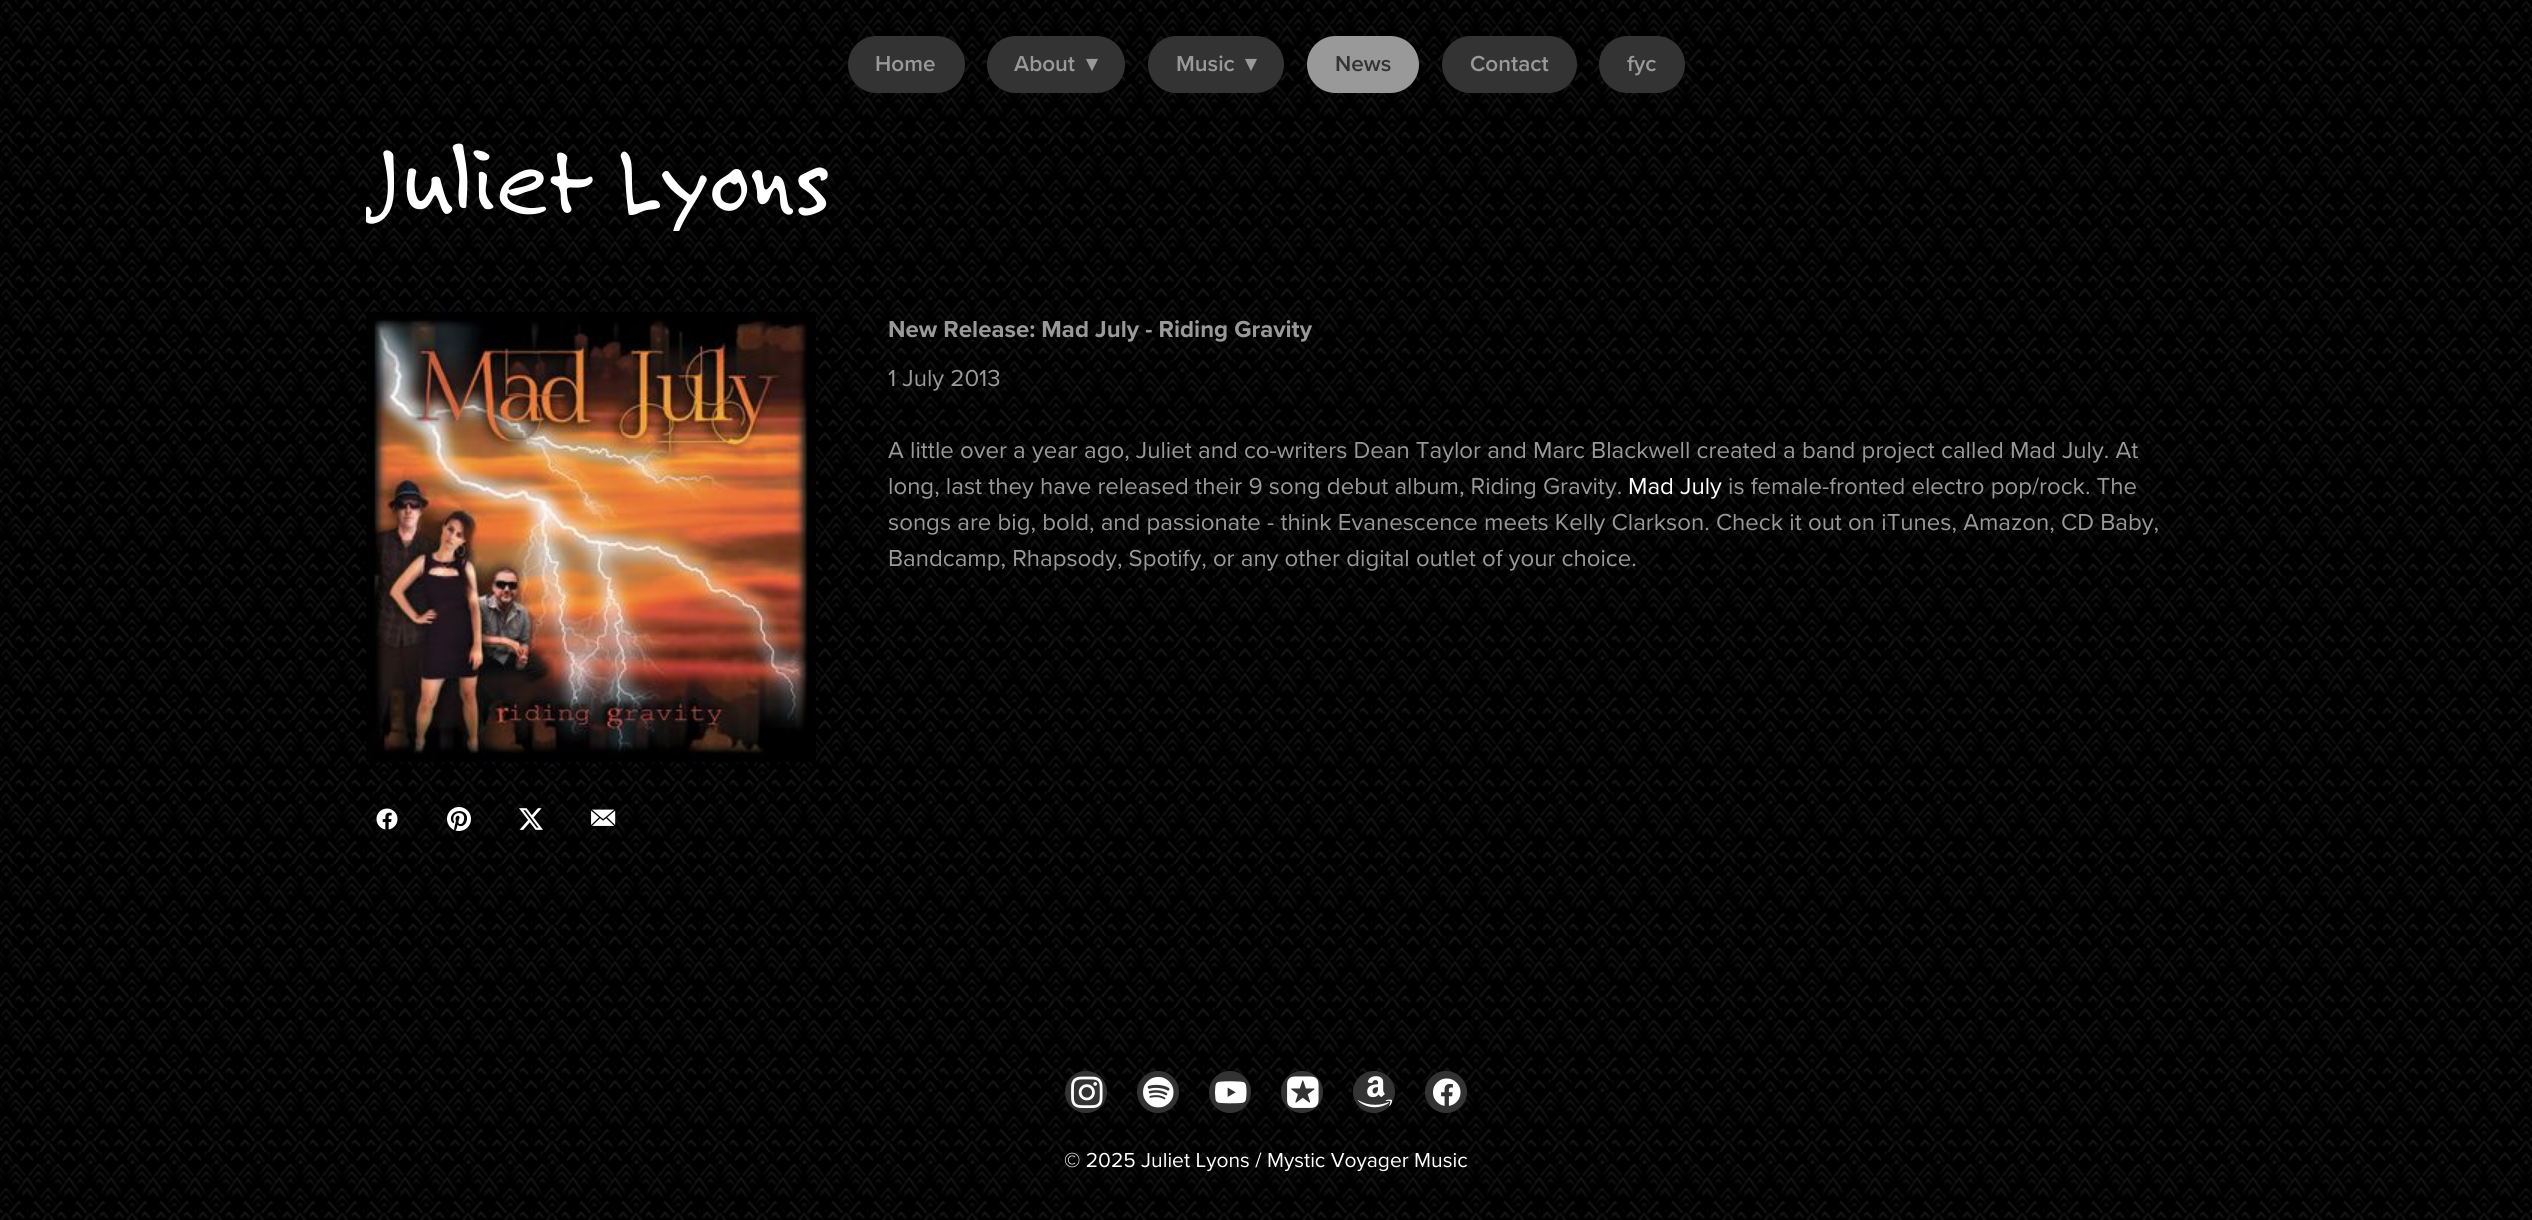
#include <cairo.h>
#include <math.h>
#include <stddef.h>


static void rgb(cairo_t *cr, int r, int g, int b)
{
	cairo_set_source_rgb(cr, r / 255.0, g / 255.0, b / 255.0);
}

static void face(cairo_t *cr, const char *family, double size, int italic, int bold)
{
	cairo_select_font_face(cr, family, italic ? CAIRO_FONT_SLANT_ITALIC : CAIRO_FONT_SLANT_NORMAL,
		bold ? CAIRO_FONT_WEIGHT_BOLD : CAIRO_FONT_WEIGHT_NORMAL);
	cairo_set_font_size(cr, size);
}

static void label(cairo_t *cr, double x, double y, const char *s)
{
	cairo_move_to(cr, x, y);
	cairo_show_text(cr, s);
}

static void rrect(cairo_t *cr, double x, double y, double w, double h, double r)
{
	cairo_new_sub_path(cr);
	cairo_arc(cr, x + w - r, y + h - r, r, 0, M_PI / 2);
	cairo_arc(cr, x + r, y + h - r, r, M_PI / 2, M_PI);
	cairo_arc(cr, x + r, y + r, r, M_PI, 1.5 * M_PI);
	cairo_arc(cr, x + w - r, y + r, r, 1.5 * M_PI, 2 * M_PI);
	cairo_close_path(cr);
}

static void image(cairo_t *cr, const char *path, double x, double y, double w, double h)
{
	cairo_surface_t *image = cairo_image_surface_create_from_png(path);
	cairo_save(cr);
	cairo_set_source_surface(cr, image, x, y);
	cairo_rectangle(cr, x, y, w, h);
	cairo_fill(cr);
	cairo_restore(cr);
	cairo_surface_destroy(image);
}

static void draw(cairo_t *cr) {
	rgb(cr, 255, 255, 255);
	cairo_paint(cr);
	image(cr, "image0.png", 0, 0, 2532, 1220);
	rgb(cr, 51, 51, 51);
	rrect(cr, 848, 36, 117, 57, 28.5);
	cairo_fill(cr);
	face(cr, "Proxima Nova SemiBold", 22.5, 0, 0);
	rgb(cr, 153, 153, 153);
	label(cr, 875, 71, "Home");
	rgb(cr, 51, 51, 51);
	rrect(cr, 987, 36, 138, 57, 28.5);
	cairo_fill(cr);
	rgb(cr, 153, 153, 153);
	label(cr, 1014, 71, "About");
	face(cr, "DejaVu Sans", 22.5, 0, 1);
	label(cr, 1086, 71, "▾");
	rgb(cr, 51, 51, 51);
	rrect(cr, 1148, 36, 136, 57, 28.5);
	cairo_fill(cr);
	face(cr, "Proxima Nova SemiBold", 22.5, 0, 0);
	rgb(cr, 153, 153, 153);
	label(cr, 1176, 71, "Music");
	face(cr, "DejaVu Sans", 22.5, 0, 1);
	label(cr, 1245, 71, "▾");
	rrect(cr, 1307, 36, 112, 57, 28.5);
	cairo_fill(cr);
	face(cr, "Proxima Nova SemiBold", 22.5, 0, 0);
	rgb(cr, 51, 51, 51);
	label(cr, 1335, 71, "News");
	rrect(cr, 1442, 36, 135, 57, 28.5);
	cairo_fill(cr);
	rgb(cr, 153, 153, 153);
	label(cr, 1470, 71, "Contact");
	rgb(cr, 51, 51, 51);
	rrect(cr, 1599, 36, 86, 57, 28.5);
	cairo_fill(cr);
	rgb(cr, 153, 153, 153);
	label(cr, 1627, 71, "fyc");
	cairo_save(cr);
	cairo_rectangle(cr, 366, 129, 1800, 102);
	cairo_clip(cr);
	face(cr, "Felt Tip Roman", 102, 0, 0);
	rgb(cr, 255, 255, 255);
	label(cr, 366, 211, "Juliet Lyons");
	cairo_restore(cr);
	image(cr, "image1.png", 366, 312, 450, 450);
	face(cr, "Proxima Nova", 24, 0, 1);
	label(cr, 888, 337, "New Release: Mad July - Riding Gravity");
	face(cr, "Proxima Nova", 24, 0, 0);
	label(cr, 888, 386, "1 July 2013");
	label(cr, 888, 458, "A little over a year ago, Juliet and co-writers Dean Taylor and Marc Blackwell created a band project called Mad July. At");
	label(cr, 888, 494, "long, last they have released their 9 song debut album, Riding Gravity.");
	rgb(cr, 255, 255, 255);
	label(cr, 1628, 494, "Mad July");
	rgb(cr, 153, 153, 153);
	label(cr, 1728, 494, "is female-fronted electro pop/rock. The");
	label(cr, 888, 530, "songs are big, bold, and passionate - think Evanescence meets Kelly Clarkson. Check it out on iTunes, Amazon, CD Baby,");
	label(cr, 888, 566, "Bandcamp, Rhapsody, Spotify, or any other digital outlet of your choice.");
	image(cr, "image2.png", 376, 808, 22, 22);
	image(cr, "image3.png", 447, 807, 24, 24);
	image(cr, "image4.png", 519, 808, 24, 22);
	image(cr, "image5.png", 591, 809, 25, 17);
	rgb(cr, 51, 51, 51);
	cairo_arc(cr, 1086, 1092, 21, 0, 2 * M_PI);
	cairo_fill(cr);
	image(cr, "image6.png", 1071, 1076, 32, 33);
	cairo_arc(cr, 1158, 1092, 21, 0, 2 * M_PI);
	cairo_fill(cr);
	image(cr, "image7.png", 1143, 1076, 31, 32);
	cairo_arc(cr, 1230, 1092, 21, 0, 2 * M_PI);
	cairo_fill(cr);
	image(cr, "image8.png", 1215, 1081, 32, 23);
	cairo_arc(cr, 1302, 1092, 21, 0, 2 * M_PI);
	cairo_fill(cr);
	image(cr, "image9.png", 1287, 1076, 32, 32);
	cairo_arc(cr, 1374, 1092, 21, 0, 2 * M_PI);
	cairo_fill(cr);
	image(cr, "image10.png", 1357, 1076, 35, 32);
	cairo_arc(cr, 1446, 1092, 21, 0, 2 * M_PI);
	cairo_fill(cr);
	image(cr, "image11.png", 1433, 1078, 28, 28);
	face(cr, "Proxima Nova", 21, 0, 0);
	rgb(cr, 255, 255, 255);
	label(cr, 1064, 1167, "© 2025 Juliet Lyons / Mystic Voyager Music");
}

int main(void) {
	cairo_surface_t *surface = cairo_image_surface_create(CAIRO_FORMAT_RGB24, 2532, 1220);
	cairo_t *cr = cairo_create(surface);
	cairo_font_options_t *options = cairo_font_options_create();
	cairo_font_options_set_hint_metrics(options, CAIRO_HINT_METRICS_OFF);
	cairo_font_options_set_hint_style(options, CAIRO_HINT_STYLE_NONE);
	cairo_set_font_options(cr, options);
	cairo_set_miter_limit(cr, 4);
	draw(cr);
	cairo_surface_write_to_png(surface, "render.png");
	cairo_font_options_destroy(options);
	cairo_destroy(cr);
	cairo_surface_destroy(surface);
	return 0;
}
